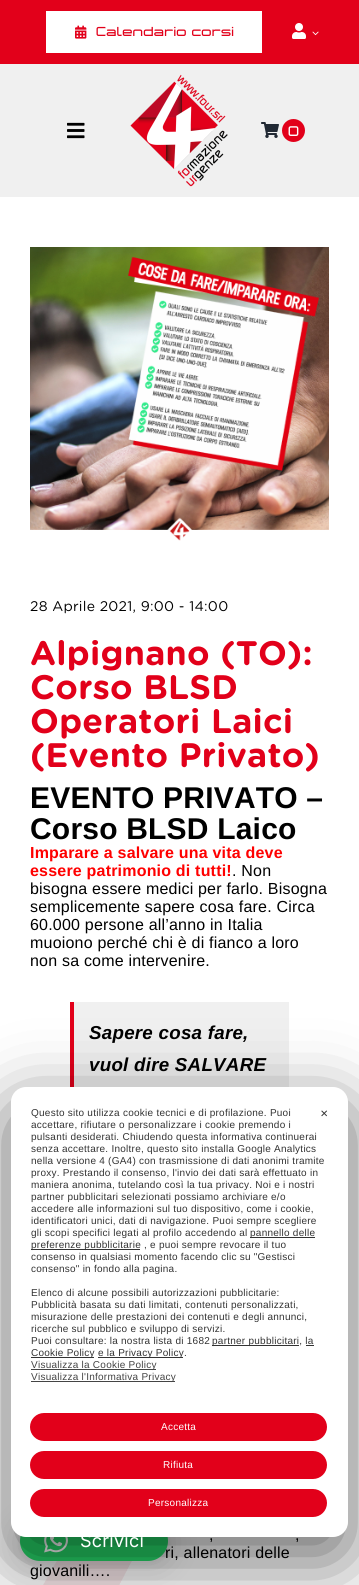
#include <cairo.h>
#include <math.h>
#include <stddef.h>


static void rgb(cairo_t *cr, int r, int g, int b)
{
	cairo_set_source_rgb(cr, r / 255.0, g / 255.0, b / 255.0);
}

static void face(cairo_t *cr, const char *family, double size, int italic, int bold)
{
	cairo_select_font_face(cr, family, italic ? CAIRO_FONT_SLANT_ITALIC : CAIRO_FONT_SLANT_NORMAL,
		bold ? CAIRO_FONT_WEIGHT_BOLD : CAIRO_FONT_WEIGHT_NORMAL);
	cairo_set_font_size(cr, size);
}

static void tracked(cairo_t *cr, double x, double y, const char *s, double letter, double word)
{
	cairo_move_to(cr, x, y);
	while (*s) {
		char ch[5] = {0};
		int n = 0;
		do ch[n++] = *s++; while ((*s & 0xC0) == 0x80);
		cairo_show_text(cr, ch);
		cairo_rel_move_to(cr, letter + word * (*ch == ' '), 0);
	}
}

static void rect(cairo_t *cr, double x, double y, double w, double h)
{
	cairo_rectangle(cr, x, y, w, h);
	cairo_fill(cr);
}

static void rrect(cairo_t *cr, double x, double y, double w, double h, double r)
{
	cairo_new_sub_path(cr);
	cairo_arc(cr, x + w - r, y + h - r, r, 0, M_PI / 2);
	cairo_arc(cr, x + r, y + h - r, r, M_PI / 2, M_PI);
	cairo_arc(cr, x + r, y + r, r, M_PI, 1.5 * M_PI);
	cairo_arc(cr, x + w - r, y + r, r, 1.5 * M_PI, 2 * M_PI);
	cairo_close_path(cr);
}

static void soft_shadow(cairo_t *cr, double x, double y, double w, double h, double r, double blur, double alpha)
{
	cairo_push_group_with_content(cr, CAIRO_CONTENT_ALPHA);
	cairo_set_operator(cr, CAIRO_OPERATOR_SOURCE);
	for (int i = 15; i >= -15 && fmin(w, h) + blur * i / 3 > 0; i -= 2) {
		double e = blur * i / 6;
		cairo_set_source_rgba(cr, 0, 0, 0, alpha * erfc((i - 1) / 8.5) / 2);
		rrect(cr, x - e, y - e, w + 2 * e, h + 2 * e, fmax(0, fmin(r + e + blur * .6, fmin(w, h) / 2 + e)));
		cairo_fill(cr);
	}
	cairo_pattern_t *soft = cairo_pop_group(cr);
	cairo_mask(cr, soft);
	cairo_pattern_destroy(soft);
}

static void image(cairo_t *cr, const char *path, double x, double y, double w, double h)
{
	cairo_surface_t *image = cairo_image_surface_create_from_png(path);
	cairo_save(cr);
	cairo_set_source_surface(cr, image, x, y);
	cairo_rectangle(cr, x, y, w, h);
	cairo_fill(cr);
	cairo_restore(cr);
	cairo_surface_destroy(image);
}

static void draw(cairo_t *cr) {
	rgb(cr, 255, 255, 255);
	cairo_paint(cr);
	rgb(cr, 226, 0, 26);
	rect(cr, 0, 0, 359, 64);
	rgb(cr, 255, 255, 255);
	rect(cr, 46, 11, 216, 42);
	image(cr, "image0.png", 75, 25, 12, 14);
	face(cr, "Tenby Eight", 13, 0, 1);
	rgb(cr, 226, 0, 26);
	tracked(cr, 96, 36, "Calendario corsi", 0.25, 0);
	image(cr, "image1.png", 292, 23, 14, 16);
	image(cr, "image2.png", 312, 31, 7, 5);
	rgb(cr, 240, 240, 240);
	rect(cr, 0, 64, 359, 133);
	image(cr, "image3.png", 67, 122, 18, 17);
	image(cr, "image4.png", 130, 74, 98, 113);
	image(cr, "image5.png", 261, 122, 18, 16);
	rgb(cr, 226, 0, 26);
	cairo_arc(cr, 293.5, 130.5, 11.5, 0, 2 * M_PI);
	cairo_fill(cr);
	face(cr, "Tenby Eight", 14, 0, 1);
	rgb(cr, 255, 255, 255);
	tracked(cr, 288, 136, "0", 0.2, 0);
	image(cr, "image6.png", 43, 1561, 89, 24);
	image(cr, "image7.png", 30, 247, 299, 294);
	face(cr, "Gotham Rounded", 14, 0, 0);
	rgb(cr, 0, 0, 0);
	tracked(cr, 30, 611, "28 Aprile 2021, 9:00 - 14:00", 0.25, 0);
	face(cr, "Gotham Rounded", 34, 0, 1);
	rgb(cr, 226, 0, 26);
	tracked(cr, 30, 665, "Alpignano (TO):", 0.25, 0);
	tracked(cr, 30, 699, "Corso BLSD", 0.25, 0);
	tracked(cr, 30, 733, "Operatori Laici", 0.25, 0);
	tracked(cr, 30, 767, "(Evento Privato)", 0.25, 0);
	face(cr, "Liberation Sans", 30, 0, 1);
	rgb(cr, 0, 0, 0);
	tracked(cr, 30, 808, "EVENTO PRIVATO –", 0.2, 0);
	tracked(cr, 30, 839, "Corso BLSD Laico", 0.2, 0);
	face(cr, "Liberation Sans", 16, 0, 1);
	rgb(cr, 255, 0, 0);
	tracked(cr, 30, 858, "Imparare a salvare una vita deve", 0.2, 0);
	tracked(cr, 30, 876, "essere patrimonio di tutti!", 0.2, 0);
	face(cr, "Liberation Sans", 16, 0, 0);
	rgb(cr, 0, 0, 0);
	tracked(cr, 232, 876, ". Non", 0.2, 0);
	tracked(cr, 30, 894, "bisogna essere medici per farlo. Bisogna", 0.2, 0);
	tracked(cr, 30, 912, "semplicemente sapere cosa fare. Circa", 0.2, 0);
	tracked(cr, 30, 930, "60.000 persone all’anno in Italia", 0.2, 0);
	tracked(cr, 30, 948, "muoiono perché chi è di fianco a loro", 0.2, 0);
	tracked(cr, 30, 966, "non sa come intervenire.", 0.2, 0);
	rgb(cr, 240, 240, 240);
	rect(cr, 74, 1002, 215, 85);
	rgb(cr, 226, 0, 26);
	rect(cr, 70, 1002, 4, 85);
	face(cr, "Liberation Sans", 18.75, 1, 1);
	rgb(cr, 0, 0, 0);
	tracked(cr, 89, 1039, "Sapere cosa fare,", 0.25, 0);
	tracked(cr, 89, 1071, "vuol dire SALVARE", 0.25, 0);
	face(cr, "Liberation Sans", 16, 0, 0);
	tracked(cr, 209, 1540, ",", 0.2, 0);
	tracked(cr, 295, 1540, ",", 0.2, 0);
	tracked(cr, 165, 1558, "ri, allenatori delle", 0.2, 0);
	tracked(cr, 30, 1576, "giovanili….", 0.2, 0);
	rgb(cr, 0, 0, 0);
	soft_shadow(cr, 20, 1523, 148, 40, 20, 16, 0.16);
	soft_shadow(cr, 20, 1522, 148, 40, 20, 3, 0.06);
	rgb(cr, 37, 211, 102);
	rrect(cr, 20, 1521, 148, 40, 20);
	cairo_fill(cr);
	image(cr, "image8.png", 44, 1537, 24, 16);
	rgb(cr, 0, 0, 0);
	soft_shadow(cr, 7, 1105, 345, 458, 19, 35, 0.56);
	rgb(cr, 255, 255, 255);
	rrect(cr, 11, 1087, 337, 450, 15);
	cairo_fill(cr);
	face(cr, "Liberation Sans", 10, 0, 0);
	rgb(cr, 51, 51, 51);
	tracked(cr, 31, 1116, "Questo sito utilizza cookie tecnici e di profilazione. Puoi", 0.25, 0);
	tracked(cr, 31, 1128, "accettare, rifiutare o personalizzare i cookie premendo i", 0.25, 0);
	tracked(cr, 31, 1140, "pulsanti desiderati. Chiudendo questa informativa continuerai", 0.25, 0);
	tracked(cr, 31, 1152, "senza accettare. Inoltre, questo sito installa Google Analytics", 0.25, 0);
	tracked(cr, 31, 1164, "nella versione 4 (GA4) con trasmissione di dati anonimi tramite", 0.25, 0);
	tracked(cr, 31, 1176, "proxy. Prestando il consenso, l'invio dei dati sarà effettuato in", 0.25, 0);
	tracked(cr, 31, 1188, "maniera anonima, tutelando così la tua privacy. Noi e i nostri", 0.25, 0);
	tracked(cr, 31, 1200, "partner pubblicitari selezionati possiamo archiviare e/o", 0.25, 0);
	tracked(cr, 31, 1212, "accedere alle informazioni sul tuo dispositivo, come i cookie,", 0.25, 0);
	tracked(cr, 31, 1224, "identificatori unici, dati di navigazione. Puoi sempre scegliere", 0.25, 0);
	tracked(cr, 31, 1236, "gli scopi specifici legati al profilo accedendo al", 0.25, 0);
	rect(cr, 250, 1237, 65, 1);
	tracked(cr, 250, 1236, "pannello delle", 0.25, 0);
	rect(cr, 31, 1249, 109, 1);
	tracked(cr, 31, 1248, "preferenze pubblicitarie , e puoi sempre revocare il tuo", 0.25, 0);
	tracked(cr, 31, 1260, "consenso in qualsiasi momento facendo clic su \"Gestisci", 0.25, 0);
	tracked(cr, 31, 1272, "consenso\" in fondo alla pagina.", 0.25, 0);
	tracked(cr, 31, 1296, "Elenco di alcune possibili autorizzazioni pubblicitarie:", 0.25, 0);
	tracked(cr, 31, 1308, "Pubblicità basata su dati limitati, contenuti personalizzati,", 0.25, 0);
	tracked(cr, 31, 1320, "misurazione delle prestazioni dei contenuti e degli annunci,", 0.25, 0);
	tracked(cr, 31, 1332, "ricerche sul pubblico e sviluppo di servizi.", 0.25, 0);
	tracked(cr, 31, 1344, "Puoi consultare: la nostra lista di 1682", 0.25, 0);
	rect(cr, 212, 1345, 87, 1);
	tracked(cr, 212, 1344, "partner pubblicitari, la", 0.25, 0);
	rect(cr, 31, 1357, 63, 1);
	tracked(cr, 31, 1356, "Cookie Policy", 0.25, 0);
	rect(cr, 306, 1345, 8, 1);
	rect(cr, 98, 1357, 85, 1);
	tracked(cr, 98, 1356, "e la Privacy Policy.", 0.25, 0);
	rgb(cr, 68, 68, 68);
	rect(cr, 31, 1369, 125, 1);
	tracked(cr, 31, 1368, "Visualizza la Cookie Policy", 0.25, 0);
	rect(cr, 31, 1381, 144, 1);
	tracked(cr, 31, 1380, "Visualizza l'Informativa Privacy", 0.25, 0);
	rgb(cr, 226, 0, 26);
	rrect(cr, 30, 1413, 297, 28, 14);
	cairo_fill(cr);
	rgb(cr, 255, 255, 255);
	tracked(cr, 161, 1430, "Accetta", 0.25, 0);
	rgb(cr, 226, 0, 26);
	rrect(cr, 30, 1451, 297, 28, 14);
	cairo_fill(cr);
	rgb(cr, 255, 255, 255);
	tracked(cr, 163, 1468, "Rifiuta", 0.25, 0);
	rgb(cr, 226, 0, 26);
	rrect(cr, 30, 1489, 297, 28, 14);
	cairo_fill(cr);
	rgb(cr, 255, 255, 255);
	tracked(cr, 148, 1506, "Personalizza", 0.25, 0);
	face(cr, "DejaVu Sans", 10, 0, 0);
	rgb(cr, 51, 51, 51);
	tracked(cr, 320, 1117, "✕", 0.25, 0);
	face(cr, "Inter", 18, 0, 0);
	rgb(cr, 255, 255, 255);
	tracked(cr, 80, 1547, "Scrivici", 0.25, 0);
}

int main(void) {
	cairo_surface_t *surface = cairo_image_surface_create(CAIRO_FORMAT_RGB24, 359, 1585);
	cairo_t *cr = cairo_create(surface);
	cairo_font_options_t *options = cairo_font_options_create();
	cairo_font_options_set_hint_metrics(options, CAIRO_HINT_METRICS_OFF);
	cairo_font_options_set_hint_style(options, CAIRO_HINT_STYLE_NONE);
	cairo_set_font_options(cr, options);
	cairo_set_miter_limit(cr, 4);
	draw(cr);
	cairo_surface_write_to_png(surface, "render.png");
	cairo_font_options_destroy(options);
	cairo_destroy(cr);
	cairo_surface_destroy(surface);
	return 0;
}
